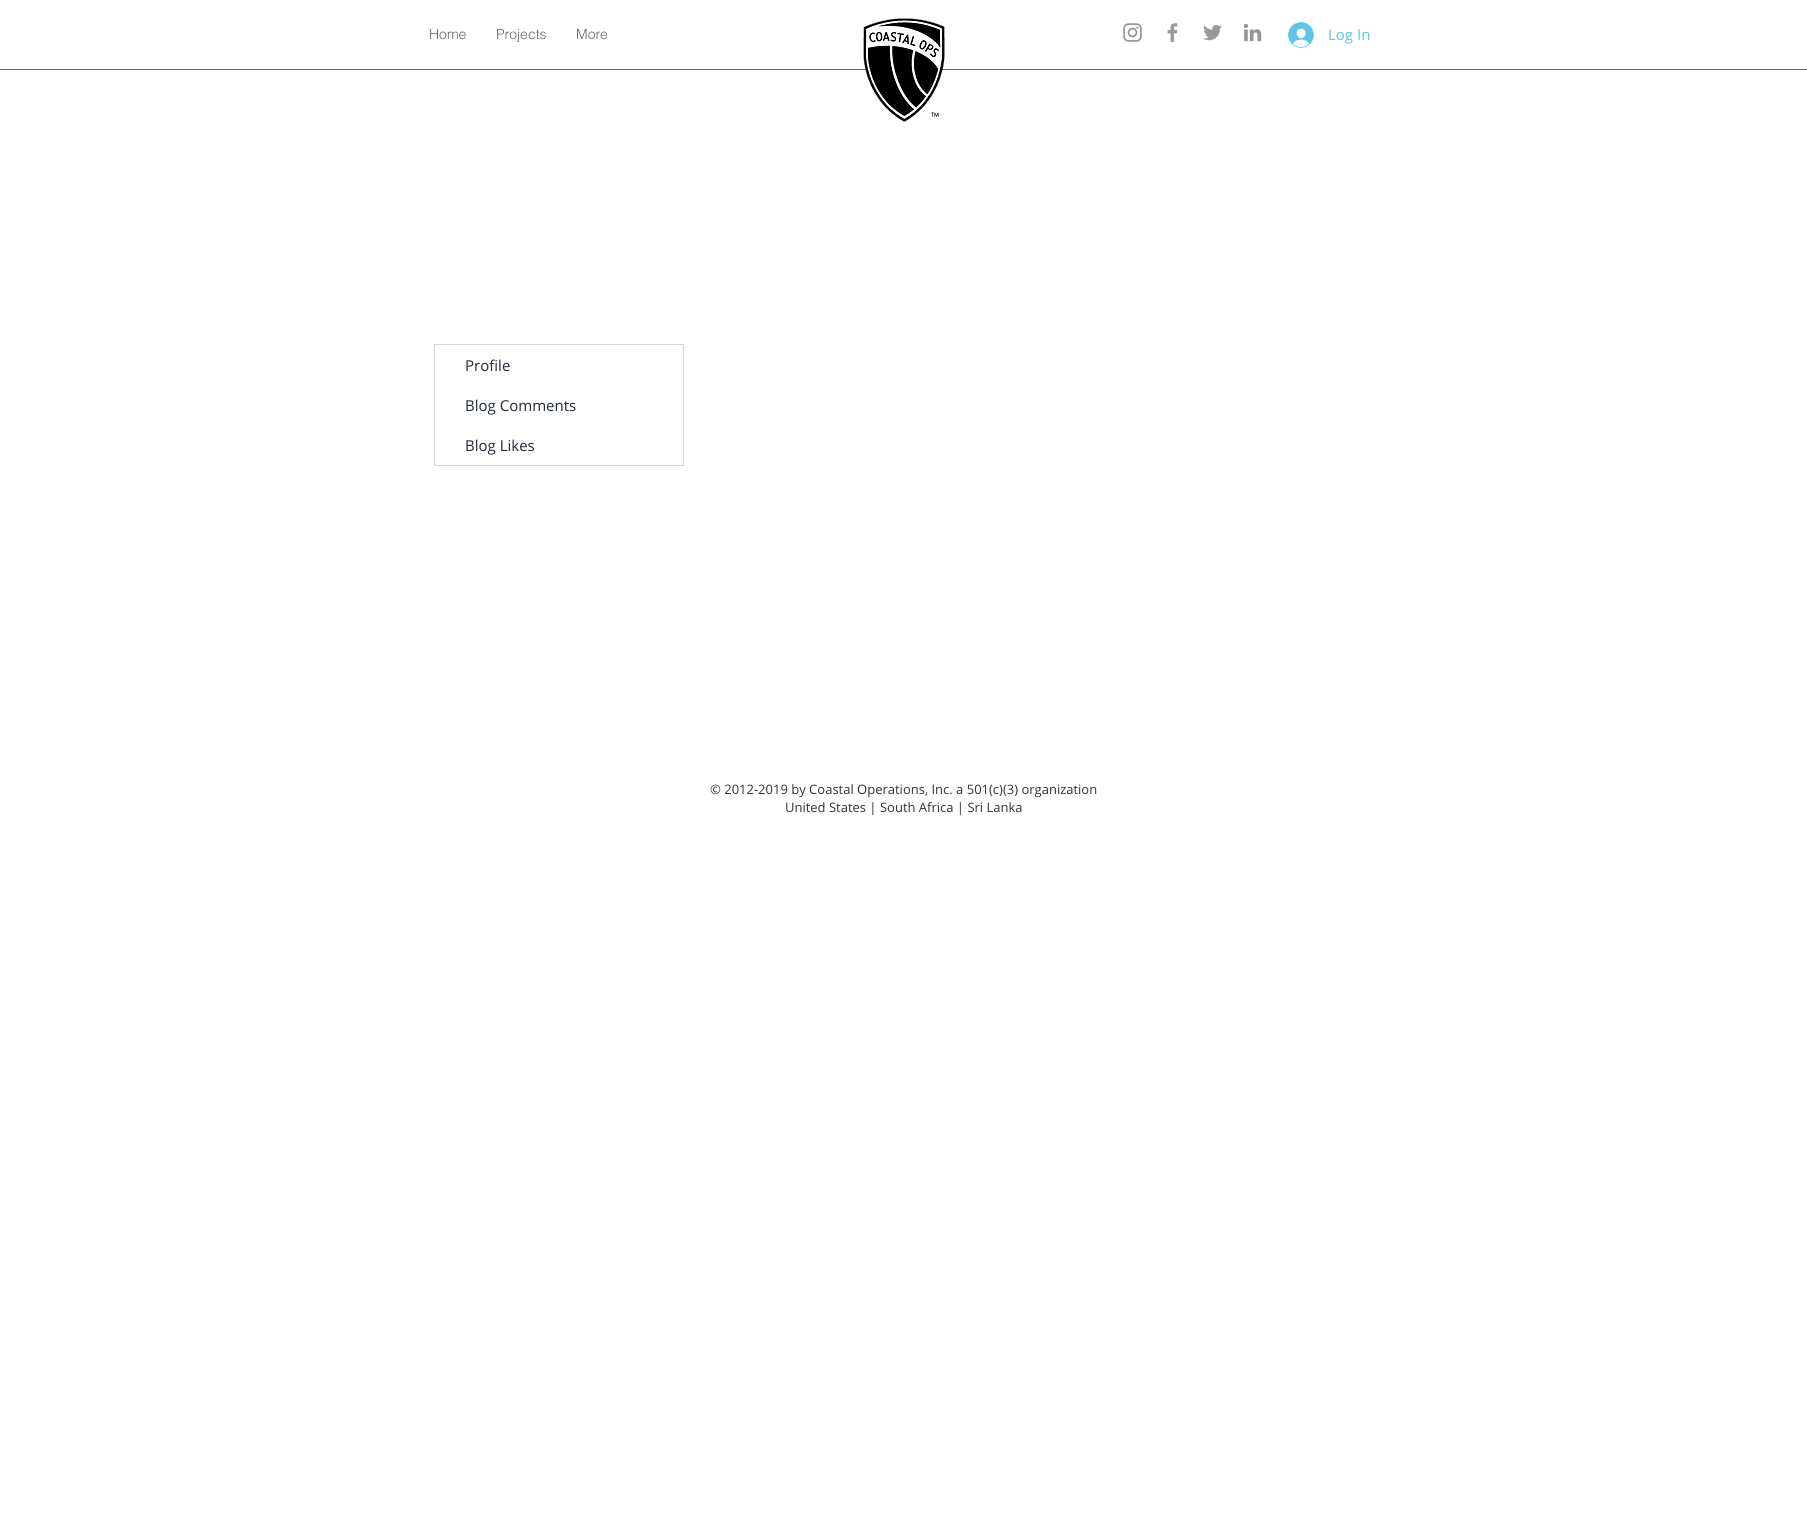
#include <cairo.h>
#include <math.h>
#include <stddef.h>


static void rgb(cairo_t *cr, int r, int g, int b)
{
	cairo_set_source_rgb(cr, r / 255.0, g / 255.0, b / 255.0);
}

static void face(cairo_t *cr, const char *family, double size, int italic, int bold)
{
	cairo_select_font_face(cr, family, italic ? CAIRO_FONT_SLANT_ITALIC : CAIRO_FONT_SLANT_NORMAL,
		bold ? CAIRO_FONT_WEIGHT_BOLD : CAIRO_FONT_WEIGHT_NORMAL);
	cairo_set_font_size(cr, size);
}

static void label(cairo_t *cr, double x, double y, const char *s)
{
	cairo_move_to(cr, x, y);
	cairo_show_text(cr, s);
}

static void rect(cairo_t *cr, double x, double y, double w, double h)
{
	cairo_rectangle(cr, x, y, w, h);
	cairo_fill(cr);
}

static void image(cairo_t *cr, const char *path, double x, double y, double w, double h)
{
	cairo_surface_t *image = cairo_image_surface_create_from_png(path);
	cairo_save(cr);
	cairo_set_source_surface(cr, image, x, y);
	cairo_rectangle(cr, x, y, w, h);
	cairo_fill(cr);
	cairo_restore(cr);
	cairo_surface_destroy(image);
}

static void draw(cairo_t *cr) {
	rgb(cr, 255, 255, 255);
	cairo_paint(cr);
	face(cr, "helvetica Light", 14, 0, 0);
	rgb(cr, 102, 102, 102);
	label(cr, 429, 39, "Home");
	label(cr, 496, 39, "Projects");
	label(cr, 576, 39, "More");
	rect(cr, 0, 69, 1807, 1);
	image(cr, "image0.png", 863, 18, 82, 104);
	image(cr, "image1.png", 1123, 23, 19, 19);
	image(cr, "image2.png", 1167, 23, 11, 19);
	image(cr, "image3.png", 1203, 24, 19, 17);
	image(cr, "image4.png", 1243, 23, 19, 19);
	image(cr, "image5.png", 1288, 22, 26, 26);
	face(cr, "Open Sans", 15, 0, 0);
	rgb(cr, 95, 198, 227);
	label(cr, 1328, 40, "Log In");
	cairo_rectangle(cr, 434.5, 344.5, 249, 121);
	rgb(cr, 211, 212, 215);
	cairo_set_line_width(cr, 1);
	cairo_stroke(cr);
	rgb(cr, 34, 42, 54);
	label(cr, 465, 371, "Profile");
	label(cr, 465, 411, "Blog Comments");
	label(cr, 465, 451, "Blog Likes");
	face(cr, "Open Sans", 13, 0, 0);
	rgb(cr, 51, 51, 51);
	label(cr, 710, 794, "© 2012-2019 by Coastal Operations, Inc. a 501(c)(3) organization");
	label(cr, 785, 812, "United States | South Africa | Sri Lanka");
}

int main(void) {
	cairo_surface_t *surface = cairo_image_surface_create(CAIRO_FORMAT_RGB24, 1807, 1530);
	cairo_t *cr = cairo_create(surface);
	cairo_font_options_t *options = cairo_font_options_create();
	cairo_font_options_set_hint_metrics(options, CAIRO_HINT_METRICS_OFF);
	cairo_font_options_set_hint_style(options, CAIRO_HINT_STYLE_NONE);
	cairo_set_font_options(cr, options);
	cairo_set_miter_limit(cr, 4);
	draw(cr);
	cairo_surface_write_to_png(surface, "render.png");
	cairo_font_options_destroy(options);
	cairo_destroy(cr);
	cairo_surface_destroy(surface);
	return 0;
}
